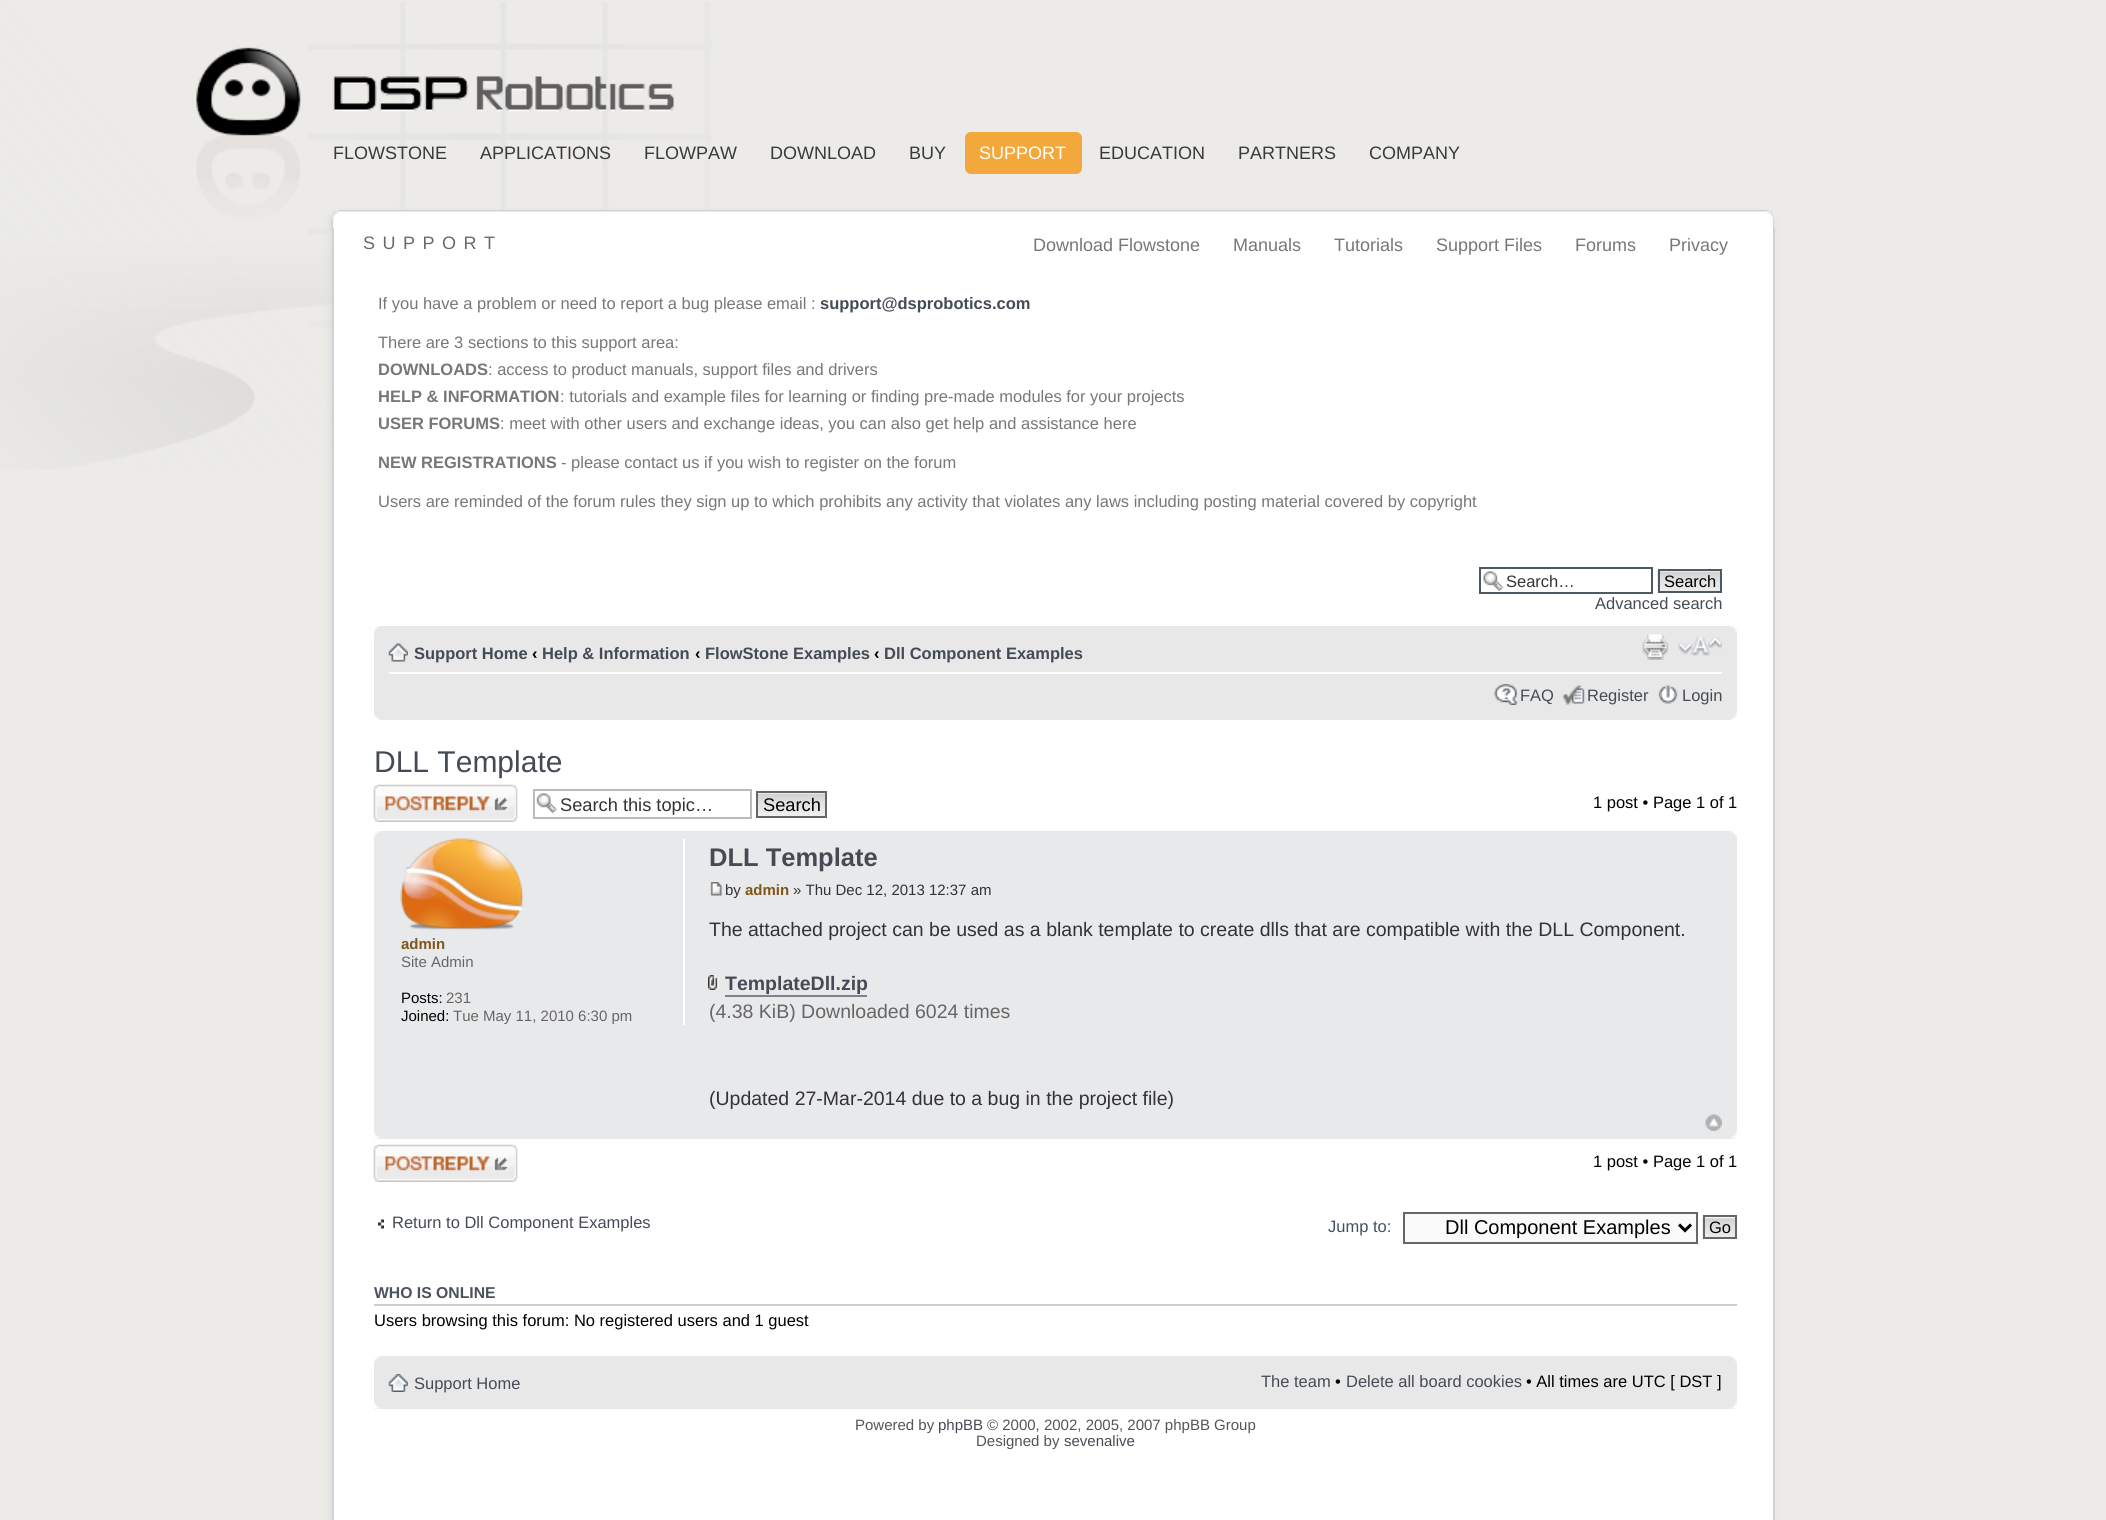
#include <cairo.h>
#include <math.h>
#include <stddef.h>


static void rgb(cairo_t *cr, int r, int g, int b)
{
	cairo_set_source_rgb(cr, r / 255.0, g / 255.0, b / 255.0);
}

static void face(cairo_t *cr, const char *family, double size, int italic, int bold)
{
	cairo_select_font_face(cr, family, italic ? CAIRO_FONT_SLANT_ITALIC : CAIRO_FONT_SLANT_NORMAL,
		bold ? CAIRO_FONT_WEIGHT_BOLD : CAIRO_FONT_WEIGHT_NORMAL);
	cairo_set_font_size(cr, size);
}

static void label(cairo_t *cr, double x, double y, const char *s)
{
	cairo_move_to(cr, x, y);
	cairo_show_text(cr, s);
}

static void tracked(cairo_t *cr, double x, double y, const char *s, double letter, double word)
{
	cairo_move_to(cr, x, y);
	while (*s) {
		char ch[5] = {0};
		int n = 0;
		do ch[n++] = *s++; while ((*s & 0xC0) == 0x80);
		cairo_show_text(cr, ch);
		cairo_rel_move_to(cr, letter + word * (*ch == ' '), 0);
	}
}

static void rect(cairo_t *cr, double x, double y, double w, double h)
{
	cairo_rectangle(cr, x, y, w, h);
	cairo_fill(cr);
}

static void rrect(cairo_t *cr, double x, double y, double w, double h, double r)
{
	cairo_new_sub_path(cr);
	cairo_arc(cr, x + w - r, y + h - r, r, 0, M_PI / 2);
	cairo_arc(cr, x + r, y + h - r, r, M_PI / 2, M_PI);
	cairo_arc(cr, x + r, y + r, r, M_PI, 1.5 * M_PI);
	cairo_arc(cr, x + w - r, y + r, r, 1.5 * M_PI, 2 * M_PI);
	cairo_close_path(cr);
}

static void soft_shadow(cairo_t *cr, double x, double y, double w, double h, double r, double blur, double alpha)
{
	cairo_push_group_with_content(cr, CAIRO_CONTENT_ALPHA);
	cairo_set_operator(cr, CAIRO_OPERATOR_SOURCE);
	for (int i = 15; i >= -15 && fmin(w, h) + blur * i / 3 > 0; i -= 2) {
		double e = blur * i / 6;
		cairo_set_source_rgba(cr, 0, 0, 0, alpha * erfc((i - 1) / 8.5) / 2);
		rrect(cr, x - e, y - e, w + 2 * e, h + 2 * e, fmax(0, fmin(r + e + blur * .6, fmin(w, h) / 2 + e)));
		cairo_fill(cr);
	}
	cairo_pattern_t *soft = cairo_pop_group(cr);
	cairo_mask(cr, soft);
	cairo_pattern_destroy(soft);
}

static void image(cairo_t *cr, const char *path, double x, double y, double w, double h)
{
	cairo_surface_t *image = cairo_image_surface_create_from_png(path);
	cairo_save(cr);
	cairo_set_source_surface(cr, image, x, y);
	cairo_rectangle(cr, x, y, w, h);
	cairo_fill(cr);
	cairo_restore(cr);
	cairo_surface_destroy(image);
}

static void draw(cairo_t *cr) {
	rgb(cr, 236, 235, 232);
	cairo_paint(cr);
	image(cr, "image0.png", 0, 2, 712, 467);
	face(cr, "Liberation Sans", 18, 0, 0);
	rgb(cr, 57, 58, 58);
	label(cr, 333, 159, "FLOWSTONE");
	label(cr, 480, 159, "APPLICATIONS");
	label(cr, 644, 159, "FLOWPAW");
	label(cr, 770, 159, "DOWNLOAD");
	label(cr, 909, 159, "BUY");
	rgb(cr, 242, 168, 58);
	rrect(cr, 965, 132, 117, 42, 6);
	cairo_fill(cr);
	rgb(cr, 255, 255, 255);
	label(cr, 979, 159, "SUPPORT");
	rgb(cr, 57, 58, 58);
	label(cr, 1099, 159, "EDUCATION");
	label(cr, 1238, 159, "PARTNERS");
	label(cr, 1369, 159, "COMPANY");
	rgb(cr, 219, 219, 219);
	soft_shadow(cr, 330, 212, 1443, 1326, 9, 3, 1);
	rgb(cr, 255, 255, 255);
	rect(cr, 334, 228, 1439, 1292);
	cairo_rectangle(cr, 333, 211, 1441, 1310);
	rgb(cr, 208, 209, 209);
	cairo_stroke(cr);
	rgb(cr, 247, 247, 247);
	rect(cr, 1774, 210, 1, 18);
	image(cr, "image1.png", 331, 210, 1444, 18);
	rgb(cr, 104, 105, 109);
	tracked(cr, 363, 249, "SUPPORT", 7.5, 0);
	rgb(cr, 119, 119, 119);
	label(cr, 1033, 251, "Download Flowstone");
	label(cr, 1233, 251, "Manuals");
	label(cr, 1334, 251, "Tutorials");
	label(cr, 1436, 251, "Support Files");
	label(cr, 1575, 251, "Forums");
	label(cr, 1669, 251, "Privacy");
	face(cr, "Liberation Sans", 16.5, 0, 0);
	label(cr, 378, 309, "If you have a problem or need to report a bug please email :");
	face(cr, "Liberation Sans", 16.5, 0, 1);
	rgb(cr, 69, 75, 84);
	label(cr, 820, 309, "support@dsprobotics.com");
	face(cr, "Liberation Sans", 16.5, 0, 0);
	rgb(cr, 119, 119, 119);
	label(cr, 378, 348, "There are 3 sections to this support area:");
	face(cr, "Liberation Sans", 16.5, 0, 1);
	label(cr, 378, 375, "DOWNLOADS");
	face(cr, "Liberation Sans", 16.5, 0, 0);
	label(cr, 488, 375, ": access to product manuals, support files and drivers");
	face(cr, "Liberation Sans", 16.5, 0, 1);
	label(cr, 378, 402, "HELP & INFORMATION");
	face(cr, "Liberation Sans", 16.5, 0, 0);
	label(cr, 560, 402, ": tutorials and example files for learning or finding pre-made modules for your projects");
	face(cr, "Liberation Sans", 16.5, 0, 1);
	label(cr, 378, 429, "USER FORUMS");
	face(cr, "Liberation Sans", 16.5, 0, 0);
	label(cr, 500, 429, ": meet with other users and exchange ideas, you can also get help and assistance here");
	face(cr, "Liberation Sans", 16.5, 0, 1);
	label(cr, 378, 468, "NEW REGISTRATIONS");
	face(cr, "Liberation Sans", 16.5, 0, 0);
	label(cr, 561, 468, "- please contact us if you wish to register on the forum");
	label(cr, 378, 507, "Users are reminded of the forum rules they sign up to which prohibits any activity that violates any laws including posting material covered by copyright");
	image(cr, "image2.png", 1483, 571, 21, 20);
	cairo_rectangle(cr, 1480, 568, 172, 25);
	rgb(cr, 77, 89, 99);
	cairo_stroke(cr);
	rgb(cr, 51, 51, 51);
	label(cr, 1506, 587, "Search…");
	image(cr, "image3.png", 1657, 570, 63, 23);
	cairo_rectangle(cr, 1659, 570, 62, 22);
	rgb(cr, 77, 89, 99);
	cairo_stroke(cr);
	rgb(cr, 0, 0, 0);
	label(cr, 1664, 587, "Search");
	rgb(cr, 69, 75, 84);
	label(cr, 1595, 609, "Advanced search");
	rgb(cr, 232, 232, 232);
	rect(cr, 374, 626, 1363, 94);
	image(cr, "image4.png", 374, 626, 7, 7);
	image(cr, "image5.png", 1730, 626, 7, 7);
	rgb(cr, 255, 255, 255);
	rect(cr, 389, 672, 1333, 2);
	image(cr, "image6.png", 388, 643, 20, 19);
	face(cr, "Liberation Sans", 16.5, 0, 1);
	rgb(cr, 69, 75, 84);
	label(cr, 414, 659, "Support Home");
	rgb(cr, 0, 0, 0);
	label(cr, 532, 659, "‹");
	rgb(cr, 69, 75, 84);
	label(cr, 542, 659, "Help & Information");
	rgb(cr, 0, 0, 0);
	label(cr, 695, 659, "‹");
	rgb(cr, 69, 75, 84);
	label(cr, 705, 659, "FlowStone Examples");
	rgb(cr, 0, 0, 0);
	label(cr, 874, 659, "‹");
	rgb(cr, 69, 75, 84);
	label(cr, 884, 659, "Dll Component Examples");
	image(cr, "image7.png", 1642, 634, 27, 26);
	image(cr, "image8.png", 1678, 637, 44, 19);
	image(cr, "image9.png", 1494, 684, 24, 21);
	face(cr, "Liberation Sans", 16.5, 0, 0);
	label(cr, 1520, 701, "FAQ");
	image(cr, "image10.png", 1562, 685, 23, 20);
	label(cr, 1587, 701, "Register");
	image(cr, "image11.png", 1658, 685, 20, 19);
	label(cr, 1682, 701, "Login");
	image(cr, "image12.png", 374, 713, 7, 7);
	image(cr, "image13.png", 1730, 713, 7, 7);
	face(cr, "Liberation Sans", 30, 0, 0);
	label(cr, 374, 772, "DLL Template");
	image(cr, "image14.png", 373, 784, 145, 38);
	image(cr, "image15.png", 536, 793, 21, 20);
	cairo_rectangle(cr, 534, 790, 217, 28);
	rgb(cr, 185, 186, 187);
	cairo_stroke(cr);
	face(cr, "Liberation Sans", 18.25, 0, 0);
	rgb(cr, 51, 51, 51);
	label(cr, 560, 811, "Search this topic…");
	image(cr, "image16.png", 758, 793, 67, 23);
	cairo_rectangle(cr, 757, 792, 69, 25);
	rgb(cr, 102, 102, 102);
	cairo_stroke(cr);
	rgb(cr, 0, 0, 0);
	label(cr, 763, 811, "Search");
	face(cr, "Liberation Sans", 16.5, 0, 0);
	label(cr, 1593, 808, "1 post • Page 1 of 1");
	rgb(cr, 232, 233, 235);
	rect(cr, 374, 831, 1363, 308);
	image(cr, "image17.png", 374, 831, 7, 7);
	image(cr, "image18.png", 1730, 831, 7, 7);
	rgb(cr, 255, 255, 255);
	rect(cr, 683, 839, 2, 186);
	image(cr, "image19.png", 400, 838, 124, 92);
	face(cr, "Liberation Sans", 15, 0, 1);
	rgb(cr, 127, 87, 27);
	label(cr, 401, 949, "admin");
	face(cr, "Liberation Sans", 15, 0, 0);
	rgb(cr, 102, 102, 102);
	label(cr, 401, 967, "Site Admin");
	rgb(cr, 0, 0, 0);
	label(cr, 401, 1003, "Posts:");
	rgb(cr, 102, 102, 102);
	label(cr, 446, 1003, "231");
	rgb(cr, 0, 0, 0);
	label(cr, 401, 1021, "Joined:");
	rgb(cr, 102, 102, 102);
	label(cr, 453, 1021, "Tue May 11, 2010 6:30 pm");
	face(cr, "Liberation Sans", 25.5, 0, 1);
	rgb(cr, 69, 75, 84);
	label(cr, 709, 866, "DLL Template");
	image(cr, "image20.png", 710, 882, 12, 14);
	face(cr, "Liberation Sans", 15, 0, 0);
	rgb(cr, 51, 51, 51);
	label(cr, 725, 895, "by");
	face(cr, "Liberation Sans", 15, 0, 1);
	rgb(cr, 127, 87, 27);
	label(cr, 745, 895, "admin");
	face(cr, "Liberation Sans", 15, 0, 0);
	rgb(cr, 51, 51, 51);
	label(cr, 793, 895, "» Thu Dec 12, 2013 12:37 am");
	face(cr, "Liberation Sans", 19.5, 0, 0);
	label(cr, 709, 936, "The attached project can be used as a blank template to create dlls that are compatible with the DLL Component.");
	image(cr, "image21.png", 708, 975, 11, 15);
	face(cr, "Liberation Sans", 19.5, 0, 1);
	rgb(cr, 69, 75, 84);
	label(cr, 725, 990, "TemplateDll.zip");
	rgb(cr, 123, 130, 141);
	rect(cr, 725, 995, 142, 2);
	face(cr, "Liberation Sans", 19.5, 0, 0);
	rgb(cr, 102, 102, 102);
	label(cr, 709, 1018, "(4.38 KiB) Downloaded 6024 times");
	rgb(cr, 51, 51, 51);
	label(cr, 709, 1105, "(Updated 27-Mar-2014 due to a bug in the project file)");
	image(cr, "image22.png", 1705, 1114, 17, 17);
	image(cr, "image23.png", 374, 1131, 6, 8);
	image(cr, "image24.png", 1730, 1131, 7, 8);
	image(cr, "image14.png", 373, 1144, 145, 38);
	face(cr, "Liberation Sans", 16.5, 0, 0);
	rgb(cr, 0, 0, 0);
	label(cr, 1593, 1167, "1 post • Page 1 of 1");
	image(cr, "image25.png", 378, 1219, 6, 10);
	rgb(cr, 69, 75, 84);
	label(cr, 392, 1228, "Return to Dll Component Examples");
	rgb(cr, 66, 80, 103);
	label(cr, 1328, 1232, "Jump to:");
	rgb(cr, 250, 250, 250);
	cairo_rectangle(cr, 1404, 1213, 293, 30);
	cairo_fill_preserve(cr);
	rgb(cr, 102, 102, 102);
	cairo_stroke(cr);
	cairo_new_path(cr);
	cairo_move_to(cr, 1679, 1224.5);
	cairo_line_to(cr, 1685, 1230.5);
	cairo_line_to(cr, 1691, 1224.5);
	rgb(cr, 0, 0, 0);
	cairo_set_line_width(cr, 3);
	cairo_stroke(cr);
	face(cr, "Liberation Sans", 20, 0, 0);
	label(cr, 1445, 1234, "Dll Component Examples");
	image(cr, "image26.png", 1702, 1217, 33, 22);
	cairo_rectangle(cr, 1704, 1216, 32, 22);
	rgb(cr, 102, 102, 102);
	cairo_set_line_width(cr, 2);
	cairo_stroke(cr);
	face(cr, "Liberation Sans", 16.5, 0, 0);
	rgb(cr, 0, 0, 0);
	label(cr, 1709, 1233, "Go");
	rgb(cr, 204, 204, 204);
	rect(cr, 374, 1304, 1363, 2);
	face(cr, "Liberation Sans", 15.75, 0, 1);
	rgb(cr, 76, 82, 93);
	label(cr, 374, 1298, "WHO IS ONLINE");
	face(cr, "Liberation Sans", 16.5, 0, 0);
	rgb(cr, 0, 0, 0);
	label(cr, 374, 1326, "Users browsing this forum: No registered users and 1 guest");
	rgb(cr, 232, 232, 232);
	rect(cr, 374, 1356, 1363, 53);
	image(cr, "image27.png", 374, 1356, 7, 7);
	image(cr, "image28.png", 1730, 1356, 7, 7);
	image(cr, "image29.png", 388, 1374, 20, 18);
	rgb(cr, 69, 75, 84);
	label(cr, 414, 1389, "Support Home");
	label(cr, 1261, 1387, "The team");
	rgb(cr, 0, 0, 0);
	label(cr, 1335, 1387, "•");
	rgb(cr, 69, 75, 84);
	label(cr, 1346, 1387, "Delete all board cookies");
	rgb(cr, 0, 0, 0);
	label(cr, 1526, 1387, "• All times are UTC [ DST ]");
	image(cr, "image30.png", 374, 1401, 6, 8);
	image(cr, "image31.png", 1730, 1401, 7, 8);
	face(cr, "Liberation Sans", 15, 0, 0);
	rgb(cr, 85, 85, 85);
	label(cr, 855, 1430, "Powered by");
	rgb(cr, 69, 75, 84);
	label(cr, 938, 1430, "phpBB");
	rgb(cr, 85, 85, 85);
	label(cr, 987, 1430, "© 2000, 2002, 2005, 2007 phpBB Group");
	label(cr, 976, 1446, "Designed by");
	rgb(cr, 69, 75, 84);
	label(cr, 1064, 1446, "sevenalive");
}

int main(void) {
	cairo_surface_t *surface = cairo_image_surface_create(CAIRO_FORMAT_RGB24, 2106, 1520);
	cairo_t *cr = cairo_create(surface);
	cairo_font_options_t *options = cairo_font_options_create();
	cairo_font_options_set_hint_metrics(options, CAIRO_HINT_METRICS_OFF);
	cairo_font_options_set_hint_style(options, CAIRO_HINT_STYLE_NONE);
	cairo_set_font_options(cr, options);
	cairo_set_miter_limit(cr, 4);
	draw(cr);
	cairo_surface_write_to_png(surface, "render.png");
	cairo_font_options_destroy(options);
	cairo_destroy(cr);
	cairo_surface_destroy(surface);
	return 0;
}
